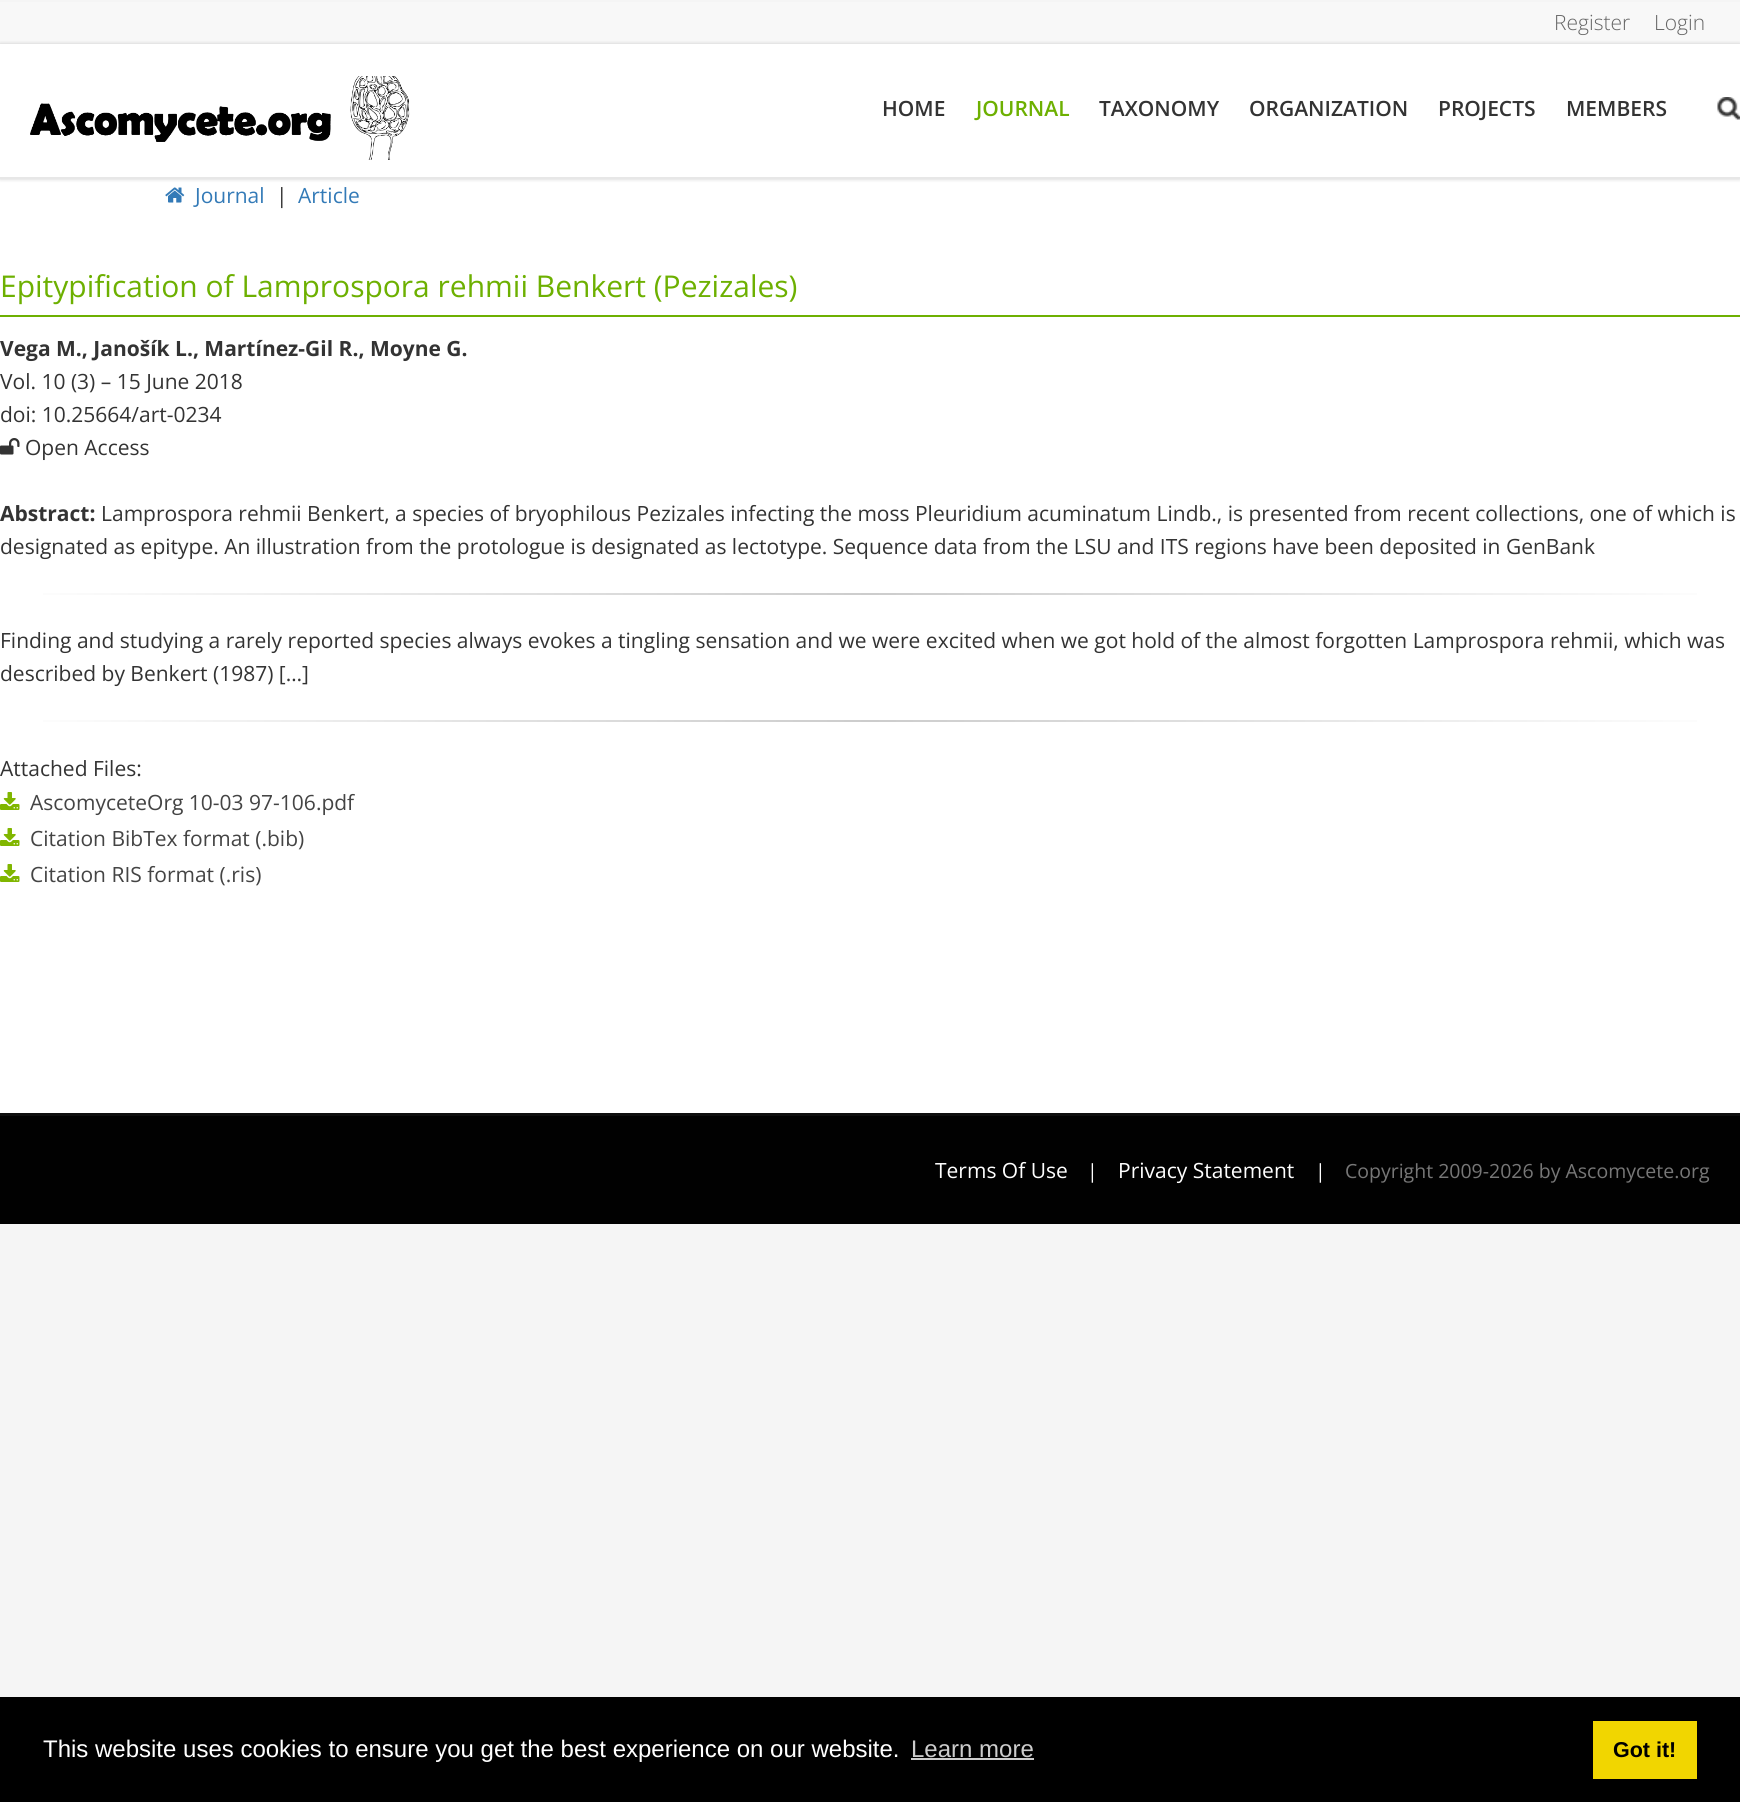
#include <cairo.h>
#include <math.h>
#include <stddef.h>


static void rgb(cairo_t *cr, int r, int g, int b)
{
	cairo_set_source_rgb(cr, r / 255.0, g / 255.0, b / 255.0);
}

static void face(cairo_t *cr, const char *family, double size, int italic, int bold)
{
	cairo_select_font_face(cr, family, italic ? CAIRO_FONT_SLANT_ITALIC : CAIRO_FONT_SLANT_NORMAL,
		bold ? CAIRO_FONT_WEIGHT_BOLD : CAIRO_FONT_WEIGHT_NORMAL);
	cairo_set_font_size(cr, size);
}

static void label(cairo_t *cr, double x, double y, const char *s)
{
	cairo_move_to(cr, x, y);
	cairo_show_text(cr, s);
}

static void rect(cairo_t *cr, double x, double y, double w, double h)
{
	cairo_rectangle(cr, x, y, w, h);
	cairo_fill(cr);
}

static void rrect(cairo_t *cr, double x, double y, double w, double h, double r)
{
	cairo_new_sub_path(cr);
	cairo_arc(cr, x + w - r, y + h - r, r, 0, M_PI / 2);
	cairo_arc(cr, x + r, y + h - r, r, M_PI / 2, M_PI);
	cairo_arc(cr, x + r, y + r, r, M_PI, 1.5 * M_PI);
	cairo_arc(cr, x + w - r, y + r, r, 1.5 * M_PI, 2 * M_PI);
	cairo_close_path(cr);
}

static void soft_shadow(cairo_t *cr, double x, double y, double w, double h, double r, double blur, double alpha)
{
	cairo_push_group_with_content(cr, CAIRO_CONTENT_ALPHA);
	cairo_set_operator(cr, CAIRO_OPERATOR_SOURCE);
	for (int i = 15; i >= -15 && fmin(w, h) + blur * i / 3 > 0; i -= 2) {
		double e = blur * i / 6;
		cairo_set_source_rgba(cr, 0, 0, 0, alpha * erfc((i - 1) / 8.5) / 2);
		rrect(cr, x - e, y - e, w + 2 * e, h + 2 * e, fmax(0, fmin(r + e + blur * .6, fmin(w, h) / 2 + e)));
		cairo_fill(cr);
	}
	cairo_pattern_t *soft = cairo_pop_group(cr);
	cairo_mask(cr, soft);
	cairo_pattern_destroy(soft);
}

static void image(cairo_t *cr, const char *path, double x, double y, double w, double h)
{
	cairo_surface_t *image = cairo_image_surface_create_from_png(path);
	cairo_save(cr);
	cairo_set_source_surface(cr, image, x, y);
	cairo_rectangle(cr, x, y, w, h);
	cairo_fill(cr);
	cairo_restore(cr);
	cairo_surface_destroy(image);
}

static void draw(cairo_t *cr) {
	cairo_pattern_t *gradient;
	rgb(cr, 245, 245, 245);
	cairo_paint(cr);
	rgb(cr, 255, 255, 255);
	rect(cr, 0, 179, 1740, 934);
	rgb(cr, 248, 248, 248);
	rect(cr, 0, 2, 1740, 42);
	face(cr, "Open Sans Light", 21, 0, 0);
	rgb(cr, 102, 102, 102);
	label(cr, 1554, 30, "Register");
	label(cr, 1654, 30, "Login");
	rgb(cr, 0, 0, 0);
	soft_shadow(cr, 0, 44, 1740, 135, 0, 2, 0.2);
	rgb(cr, 255, 255, 255);
	rect(cr, 0, 44, 1740, 133);
	rgb(cr, 231, 231, 231);
	rect(cr, 0, 177, 1740, 2);
	image(cr, "image0.png", 30, 76, 380, 84);
	face(cr, "Open Sans SemiBold", 21, 0, 0);
	rgb(cr, 51, 51, 51);
	label(cr, 882, 116, "HOME");
	rgb(cr, 109, 176, 1);
	label(cr, 976, 116, "JOURNAL");
	rgb(cr, 51, 51, 51);
	label(cr, 1099, 116, "TAXONOMY");
	label(cr, 1249, 116, "ORGANIZATION");
	label(cr, 1438, 116, "PROJECTS");
	label(cr, 1566, 116, "MEMBERS");
	image(cr, "image1.png", 1717, 97, 23, 23);
	image(cr, "image2.png", 165, 187, 20, 16);
	face(cr, "Open Sans", 21, 0, 0);
	rgb(cr, 51, 122, 183);
	label(cr, 195, 203, "Journal");
	rgb(cr, 51, 51, 51);
	label(cr, 276, 203, "|");
	rgb(cr, 51, 122, 183);
	label(cr, 298, 203, "Article");
	rgb(cr, 109, 176, 1);
	rect(cr, 0, 315, 1740, 2);
	face(cr, "Open Sans", 30, 0, 0);
	label(cr, 0, 297, "Epitypification of Lamprospora rehmii Benkert (Pezizales)");
	face(cr, "Open Sans", 21, 0, 1);
	rgb(cr, 51, 51, 51);
	label(cr, 0, 356, "Vega M., Janošík L., Martínez-Gil R., Moyne G.");
	face(cr, "Open Sans", 21, 0, 0);
	label(cr, 0, 389, "Vol. 10 (3) – 15 June 2018");
	label(cr, 0, 422, "doi: 10.25664/art-0234");
	image(cr, "image3.png", 0, 438, 20, 17);
	label(cr, 25, 455, "Open Access");
	face(cr, "Open Sans", 21, 0, 1);
	label(cr, 0, 521, "Abstract:");
	face(cr, "Open Sans", 21, 0, 0);
	label(cr, 101, 521, "Lamprospora rehmii Benkert, a species of bryophilous Pezizales infecting the moss Pleuridium acuminatum Lindb., is presented from recent collections, one of which is");
	label(cr, 0, 554, "designated as epitype. An illustration from the protologue is designated as lectotype. Sequence data from the LSU and ITS regions have been deposited in GenBank");
	gradient = cairo_pattern_create_linear(0, 593, 1740, 593);
	cairo_pattern_add_color_stop_rgba(gradient, 0, 1, 1, 1, 1);
	cairo_pattern_add_color_stop_rgba(gradient, 0.5, 0.8, 0.8, 0.8, 1);
	cairo_pattern_add_color_stop_rgba(gradient, 1, 1, 1, 1, 1);
	cairo_set_source(cr, gradient);
	cairo_pattern_destroy(gradient);
	rect(cr, 43, 593, 1654, 2);
	rgb(cr, 51, 51, 51);
	label(cr, 0, 648, "Finding and studying a rarely reported species always evokes a tingling sensation and we were excited when we got hold of the almost forgotten Lamprospora rehmii, which was");
	label(cr, 0, 681, "described by Benkert (1987) […]");
	gradient = cairo_pattern_create_linear(0, 721, 1740, 721);
	cairo_pattern_add_color_stop_rgba(gradient, 0, 1, 1, 1, 1);
	cairo_pattern_add_color_stop_rgba(gradient, 0.5, 0.8, 0.8, 0.8, 1);
	cairo_pattern_add_color_stop_rgba(gradient, 1, 1, 1, 1, 1);
	cairo_set_source(cr, gradient);
	cairo_pattern_destroy(gradient);
	rect(cr, 43, 720, 1654, 2);
	rgb(cr, 51, 51, 51);
	label(cr, 0, 776, "Attached Files:");
	image(cr, "image4.png", 0, 792, 20, 18);
	rgb(cr, 68, 68, 68);
	label(cr, 30, 810, "AscomyceteOrg 10-03 97-106.pdf");
	image(cr, "image4.png", 0, 828, 20, 18);
	label(cr, 30, 846, "Citation BibTex format (.bib)");
	image(cr, "image4.png", 0, 864, 20, 18);
	label(cr, 30, 882, "Citation RIS format (.ris)");
	rgb(cr, 14, 14, 14);
	rect(cr, 0, 1113, 1740, 3);
	rgb(cr, 1, 1, 1);
	rect(cr, 0, 1116, 1740, 108);
	rgb(cr, 255, 255, 255);
	label(cr, 935, 1178, "Terms Of Use");
	face(cr, "Open Sans", 19.5, 0, 0);
	label(cr, 1087, 1178, "|");
	face(cr, "Open Sans", 21, 0, 0);
	label(cr, 1118, 1178, "Privacy Statement");
	face(cr, "Open Sans", 19.5, 0, 0);
	label(cr, 1315, 1178, "|");
	rgb(cr, 119, 119, 119);
	label(cr, 1345, 1178, "Copyright 2009-2026 by Ascomycete.org");
	rgb(cr, 0, 0, 0);
	rect(cr, 0, 1697, 1740, 105);
	face(cr, "Liberation Sans", 24, 0, 0);
	rgb(cr, 255, 255, 255);
	label(cr, 43, 1757, "This website uses cookies to ensure you get the best experience on our website.");
	rgb(cr, 204, 204, 204);
	label(cr, 911, 1757, "Learn more");
	rect(cr, 911, 1758, 123, 2);
	rgb(cr, 241, 214, 0);
	rect(cr, 1593, 1721, 104, 58);
	face(cr, "Liberation Sans", 21.5, 0, 1);
	rgb(cr, 0, 0, 0);
	label(cr, 1613, 1757, "Got it!");
}

int main(void) {
	cairo_surface_t *surface = cairo_image_surface_create(CAIRO_FORMAT_RGB24, 1740, 1802);
	cairo_t *cr = cairo_create(surface);
	cairo_font_options_t *options = cairo_font_options_create();
	cairo_font_options_set_hint_metrics(options, CAIRO_HINT_METRICS_OFF);
	cairo_font_options_set_hint_style(options, CAIRO_HINT_STYLE_NONE);
	cairo_set_font_options(cr, options);
	cairo_set_miter_limit(cr, 4);
	draw(cr);
	cairo_surface_write_to_png(surface, "render.png");
	cairo_font_options_destroy(options);
	cairo_destroy(cr);
	cairo_surface_destroy(surface);
	return 0;
}
